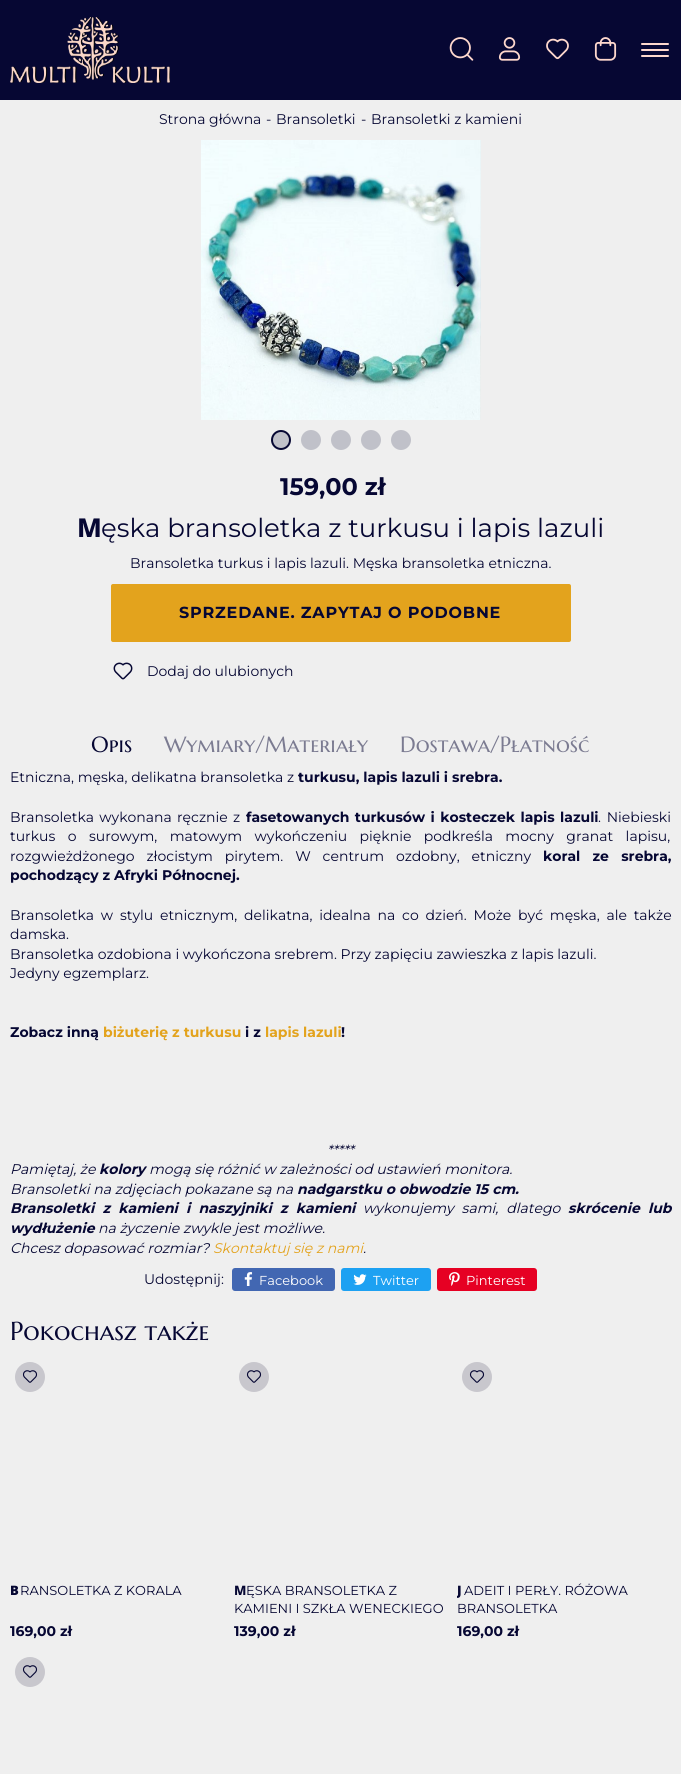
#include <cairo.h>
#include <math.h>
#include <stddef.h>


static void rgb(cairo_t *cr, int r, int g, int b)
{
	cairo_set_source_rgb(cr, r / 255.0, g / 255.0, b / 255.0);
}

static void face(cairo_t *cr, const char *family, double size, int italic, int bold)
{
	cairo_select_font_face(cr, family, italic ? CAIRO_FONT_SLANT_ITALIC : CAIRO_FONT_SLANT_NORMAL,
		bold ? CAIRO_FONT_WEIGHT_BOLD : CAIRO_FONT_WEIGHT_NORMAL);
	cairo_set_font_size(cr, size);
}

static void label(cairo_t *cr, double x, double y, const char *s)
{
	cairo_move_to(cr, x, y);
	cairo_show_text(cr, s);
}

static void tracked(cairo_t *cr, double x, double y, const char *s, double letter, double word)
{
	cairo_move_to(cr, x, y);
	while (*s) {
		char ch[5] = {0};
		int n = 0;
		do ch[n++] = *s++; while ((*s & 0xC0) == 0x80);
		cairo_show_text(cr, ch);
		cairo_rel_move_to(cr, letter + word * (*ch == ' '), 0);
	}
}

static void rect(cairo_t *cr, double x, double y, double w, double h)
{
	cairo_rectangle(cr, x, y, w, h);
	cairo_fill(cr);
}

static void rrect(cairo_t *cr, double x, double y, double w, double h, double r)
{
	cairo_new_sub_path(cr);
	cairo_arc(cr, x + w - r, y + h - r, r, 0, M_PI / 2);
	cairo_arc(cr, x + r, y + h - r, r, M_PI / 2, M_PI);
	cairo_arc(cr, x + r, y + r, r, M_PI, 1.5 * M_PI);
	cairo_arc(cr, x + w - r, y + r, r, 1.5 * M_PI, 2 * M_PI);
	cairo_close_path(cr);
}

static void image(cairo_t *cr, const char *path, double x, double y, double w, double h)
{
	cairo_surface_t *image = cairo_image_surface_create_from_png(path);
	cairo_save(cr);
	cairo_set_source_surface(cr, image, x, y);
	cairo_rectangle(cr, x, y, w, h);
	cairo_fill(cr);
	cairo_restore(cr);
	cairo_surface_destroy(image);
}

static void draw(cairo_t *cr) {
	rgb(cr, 239, 239, 239);
	cairo_paint(cr);
	rgb(cr, 6, 7, 51);
	rect(cr, 0, 0, 681, 100);
	image(cr, "image0.png", 10, 17, 160, 66);
	image(cr, "image1.png", 449, 37, 25, 24);
	image(cr, "image2.png", 498, 37, 23, 24);
	image(cr, "image3.png", 546, 38, 23, 22);
	image(cr, "image4.png", 594, 37, 23, 24);
	rgb(cr, 254, 216, 205);
	rrect(cr, 641, 43, 28, 2, 1);
	cairo_fill(cr);
	rrect(cr, 641, 49, 28, 2, 1);
	cairo_fill(cr);
	rrect(cr, 641, 55, 28, 2, 1);
	cairo_fill(cr);
	face(cr, "Montserrat Thin", 14, 0, 0);
	rgb(cr, 6, 7, 51);
	label(cr, 159, 124, "Strona główna");
	label(cr, 266, 124, "-");
	label(cr, 276, 124, "Bransoletki");
	label(cr, 361, 124, "-");
	label(cr, 371, 124, "Bransoletki z kamieni");
	image(cr, "image5.png", 201, 140, 280, 280);
	image(cr, "image6.png", 480, 140, 1, 280);
	image(cr, "image7.png", 215, 271, 10, 17);
	image(cr, "image8.png", 456, 270, 10, 17);
	rgb(cr, 192, 193, 201);
	cairo_arc(cr, 281, 440, 9, 0, 2 * M_PI);
	cairo_fill_preserve(cr);
	rgb(cr, 6, 7, 51);
	cairo_stroke(cr);
	rgb(cr, 192, 193, 201);
	cairo_arc(cr, 311, 440, 10, 0, 2 * M_PI);
	cairo_fill(cr);
	cairo_arc(cr, 341, 440, 10, 0, 2 * M_PI);
	cairo_fill(cr);
	cairo_arc(cr, 371, 440, 10, 0, 2 * M_PI);
	cairo_fill(cr);
	cairo_arc(cr, 401, 440, 10, 0, 2 * M_PI);
	cairo_fill(cr);
	face(cr, "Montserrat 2 Thin", 24, 0, 0);
	rgb(cr, 6, 7, 51);
	label(cr, 280, 495, "159,00 zł");
	face(cr, "Noto Sans ExtraBold", 26, 0, 0);
	label(cr, 77, 537, "M");
	face(cr, "Montserrat Thin", 26, 0, 0);
	label(cr, 101, 537, "ęska bransoletka z turkusu i lapis lazuli");
	face(cr, "Montserrat Thin", 14, 0, 0);
	label(cr, 130, 568, "Bransoletka turkus i lapis lazuli. Męska bransoletka etniczna.");
	rgb(cr, 227, 163, 29);
	rrect(cr, 111, 584, 460, 58, 2);
	cairo_fill(cr);
	face(cr, "Montserrat 2 Thin", 16, 0, 0);
	rgb(cr, 6, 7, 51);
	tracked(cr, 179, 618, "SPRZEDANE. ZAPYTAJ O PODOBNE", 0.8, 0);
	image(cr, "image9.png", 113, 662, 20, 18);
	face(cr, "Montserrat Thin", 14, 0, 0);
	label(cr, 147, 676, "Dodaj do ulubionych");
	face(cr, "Marcellus SC", 22, 0, 0);
	label(cr, 91, 752, "Opis");
	rgb(cr, 123, 123, 145);
	label(cr, 164, 752, "Wymiary/Materiały");
	label(cr, 400, 752, "Dostawa/Płatność");
	face(cr, "Montserrat Thin", 14, 0, 0);
	rgb(cr, 6, 7, 51);
	label(cr, 10, 782, "Etniczna, męska, delikatna bransoletka z");
	face(cr, "Montserrat 2 Thin", 14, 0, 0);
	label(cr, 298, 782, "turkusu, lapis lazuli i srebra.");
	face(cr, "Montserrat Thin", 14, 0, 0);
	tracked(cr, 10, 822, "Bransoletka wykonana ręcznie z", 0, 1.5);
	face(cr, "Montserrat 2 Thin", 14, 0, 0);
	tracked(cr, 246, 822, "fasetowanych turkusów i kosteczek lapis lazuli", 0, 1.5);
	face(cr, "Montserrat Thin", 14, 0, 0);
	tracked(cr, 598, 822, ". Niebieski", 0, 2);
	tracked(cr, 10, 841, "turkus o surowym, matowym wykończeniu pięknie podkreśla mocny granat lapisu,", 0, 8.75);
	tracked(cr, 10, 861, "rozgwieżdżonego złocistym pirytem. W centrum ozdobny, etniczny", 0, 8.25);
	face(cr, "Montserrat 2 Thin", 14, 0, 0);
	tracked(cr, 543, 861, "koral ze srebra,", 0, 8.25);
	label(cr, 10, 880, "pochodzący z Afryki Północnej.");
	face(cr, "Montserrat Thin", 14, 0, 0);
	tracked(cr, 10, 920, "Bransoletka w stylu etnicznym, delikatna, idealna na co dzień. Może być męska, ale także", 0, 3.1);
	label(cr, 10, 939, "damska.");
	label(cr, 10, 959, "Bransoletka ozdobiona i wykończona srebrem. Przy zapięciu zawieszka z lapis lazuli.");
	label(cr, 10, 978, "Jedyny egzemplarz.");
	face(cr, "Montserrat 2 Thin", 14, 0, 0);
	label(cr, 10, 1037, "Zobacz inną");
	rgb(cr, 227, 163, 29);
	label(cr, 103, 1037, "biżuterię z turkusu");
	rgb(cr, 6, 7, 51);
	label(cr, 245, 1037, "i z");
	rgb(cr, 227, 163, 29);
	label(cr, 265, 1037, "lapis lazuli");
	rgb(cr, 6, 7, 51);
	label(cr, 341, 1037, "!");
	face(cr, "Montserrat Thin", 14, 1, 0);
	label(cr, 327, 1155, "*****");
	label(cr, 10, 1174, "Pamiętaj, że");
	face(cr, "Montserrat 2 Thin", 14, 1, 0);
	label(cr, 99, 1174, "kolory");
	face(cr, "Montserrat Thin", 14, 1, 0);
	label(cr, 149, 1174, "mogą się różnić w zależności od ustawień monitora.");
	label(cr, 10, 1194, "Bransoletki na zdjęciach pokazane są na");
	face(cr, "Montserrat 2 Thin", 14, 1, 0);
	label(cr, 297, 1194, "nadgarstku o obwodzie 15 cm.");
	tracked(cr, 10, 1213, "Bransoletki z kamieni i naszyjniki z kamieni", 0, 4.25);
	face(cr, "Montserrat Thin", 14, 1, 0);
	tracked(cr, 363, 1213, "wykonujemy sami, dlatego", 0, 4.25);
	face(cr, "Montserrat 2 Thin", 14, 1, 0);
	tracked(cr, 568, 1213, "skrócenie lub", 0, 4.25);
	label(cr, 10, 1233, "wydłużenie");
	face(cr, "Montserrat Thin", 14, 1, 0);
	label(cr, 98, 1233, "na życzenie zwykle jest możliwe.");
	label(cr, 10, 1253, "Chcesz dopasować rozmiar?");
	rgb(cr, 227, 163, 29);
	label(cr, 213, 1253, "Skontaktuj się z nami");
	rgb(cr, 6, 7, 51);
	label(cr, 363, 1253, ".");
	face(cr, "Montserrat Thin", 14, 0, 0);
	label(cr, 144, 1284, "Udostępnij:");
	rgb(cr, 66, 103, 178);
	rrect(cr, 232, 1268, 103, 23, 3);
	cairo_fill(cr);
	image(cr, "image10.png", 244, 1272, 9, 14);
	face(cr, "Montserrat Thin", 13, 0, 0);
	rgb(cr, 255, 255, 255);
	label(cr, 259, 1285, "Facebook");
	rgb(cr, 29, 161, 242);
	rrect(cr, 341, 1268, 90, 23, 3);
	cairo_fill(cr);
	image(cr, "image11.png", 353, 1274, 14, 11);
	rgb(cr, 255, 255, 255);
	label(cr, 373, 1285, "Twitter");
	rgb(cr, 230, 0, 35);
	rrect(cr, 437, 1268, 100, 23, 3);
	cairo_fill(cr);
	image(cr, "image12.png", 449, 1272, 11, 14);
	rgb(cr, 255, 255, 255);
	label(cr, 466, 1285, "Pinterest");
	face(cr, "Marcellus SC", 26, 0, 0);
	rgb(cr, 6, 7, 51);
	label(cr, 10, 1340, "Pokochasz także");
	rgb(cr, 200, 199, 205);
	cairo_new_path(cr);
	cairo_arc(cr, 30, 1377, 15, 0, 2 * M_PI);
	cairo_fill(cr);
	image(cr, "image13.png", 22, 1370, 16, 13);
	face(cr, "Noto Sans Black", 13, 0, 0);
	rgb(cr, 6, 7, 51);
	label(cr, 10, 1595, "B");
	face(cr, "Montserrat Thin", 13, 0, 0);
	label(cr, 20, 1595, "RANSOLETKA Z KORALA");
	face(cr, "Montserrat 2 Thin", 14, 0, 0);
	label(cr, 10, 1636, "169,00 zł");
	rgb(cr, 200, 199, 205);
	cairo_new_path(cr);
	cairo_arc(cr, 254, 1377, 15, 0, 2 * M_PI);
	cairo_fill(cr);
	image(cr, "image13.png", 246, 1370, 16, 13);
	face(cr, "Noto Sans ExtraBold", 13, 0, 0);
	rgb(cr, 6, 7, 51);
	label(cr, 234, 1595, "M");
	face(cr, "Montserrat Thin", 13, 0, 0);
	label(cr, 246, 1595, "ĘSKA BRANSOLETKA Z");
	label(cr, 234, 1613, "KAMIENI I SZKŁA WENECKIEGO");
	face(cr, "Montserrat 2 Thin", 14, 0, 0);
	label(cr, 234, 1636, "139,00 zł");
	rgb(cr, 200, 199, 205);
	cairo_new_path(cr);
	cairo_arc(cr, 477, 1377, 15, 0, 2 * M_PI);
	cairo_fill(cr);
	image(cr, "image13.png", 469, 1370, 16, 13);
	cairo_save(cr);
	cairo_rectangle(cr, 457, 1357, 214, 285);
	cairo_clip(cr);
	face(cr, "Noto Sans Black", 13, 0, 0);
	rgb(cr, 6, 7, 51);
	label(cr, 457, 1595, "J");
	cairo_restore(cr);
	face(cr, "Montserrat Thin", 13, 0, 0);
	rgb(cr, 6, 7, 51);
	label(cr, 464, 1595, "ADEIT I PERŁY. RÓŻOWA");
	label(cr, 457, 1613, "BRANSOLETKA");
	face(cr, "Montserrat 2 Thin", 14, 0, 0);
	label(cr, 457, 1636, "169,00 zł");
	rgb(cr, 200, 199, 205);
	cairo_new_path(cr);
	cairo_arc(cr, 30, 1672, 15, 0, 2 * M_PI);
	cairo_fill(cr);
	image(cr, "image13.png", 22, 1665, 16, 13);
}

int main(void) {
	cairo_surface_t *surface = cairo_image_surface_create(CAIRO_FORMAT_RGB24, 681, 1774);
	cairo_t *cr = cairo_create(surface);
	cairo_font_options_t *options = cairo_font_options_create();
	cairo_font_options_set_hint_metrics(options, CAIRO_HINT_METRICS_OFF);
	cairo_font_options_set_hint_style(options, CAIRO_HINT_STYLE_NONE);
	cairo_set_font_options(cr, options);
	cairo_set_miter_limit(cr, 4);
	draw(cr);
	cairo_surface_write_to_png(surface, "render.png");
	cairo_font_options_destroy(options);
	cairo_destroy(cr);
	cairo_surface_destroy(surface);
	return 0;
}
